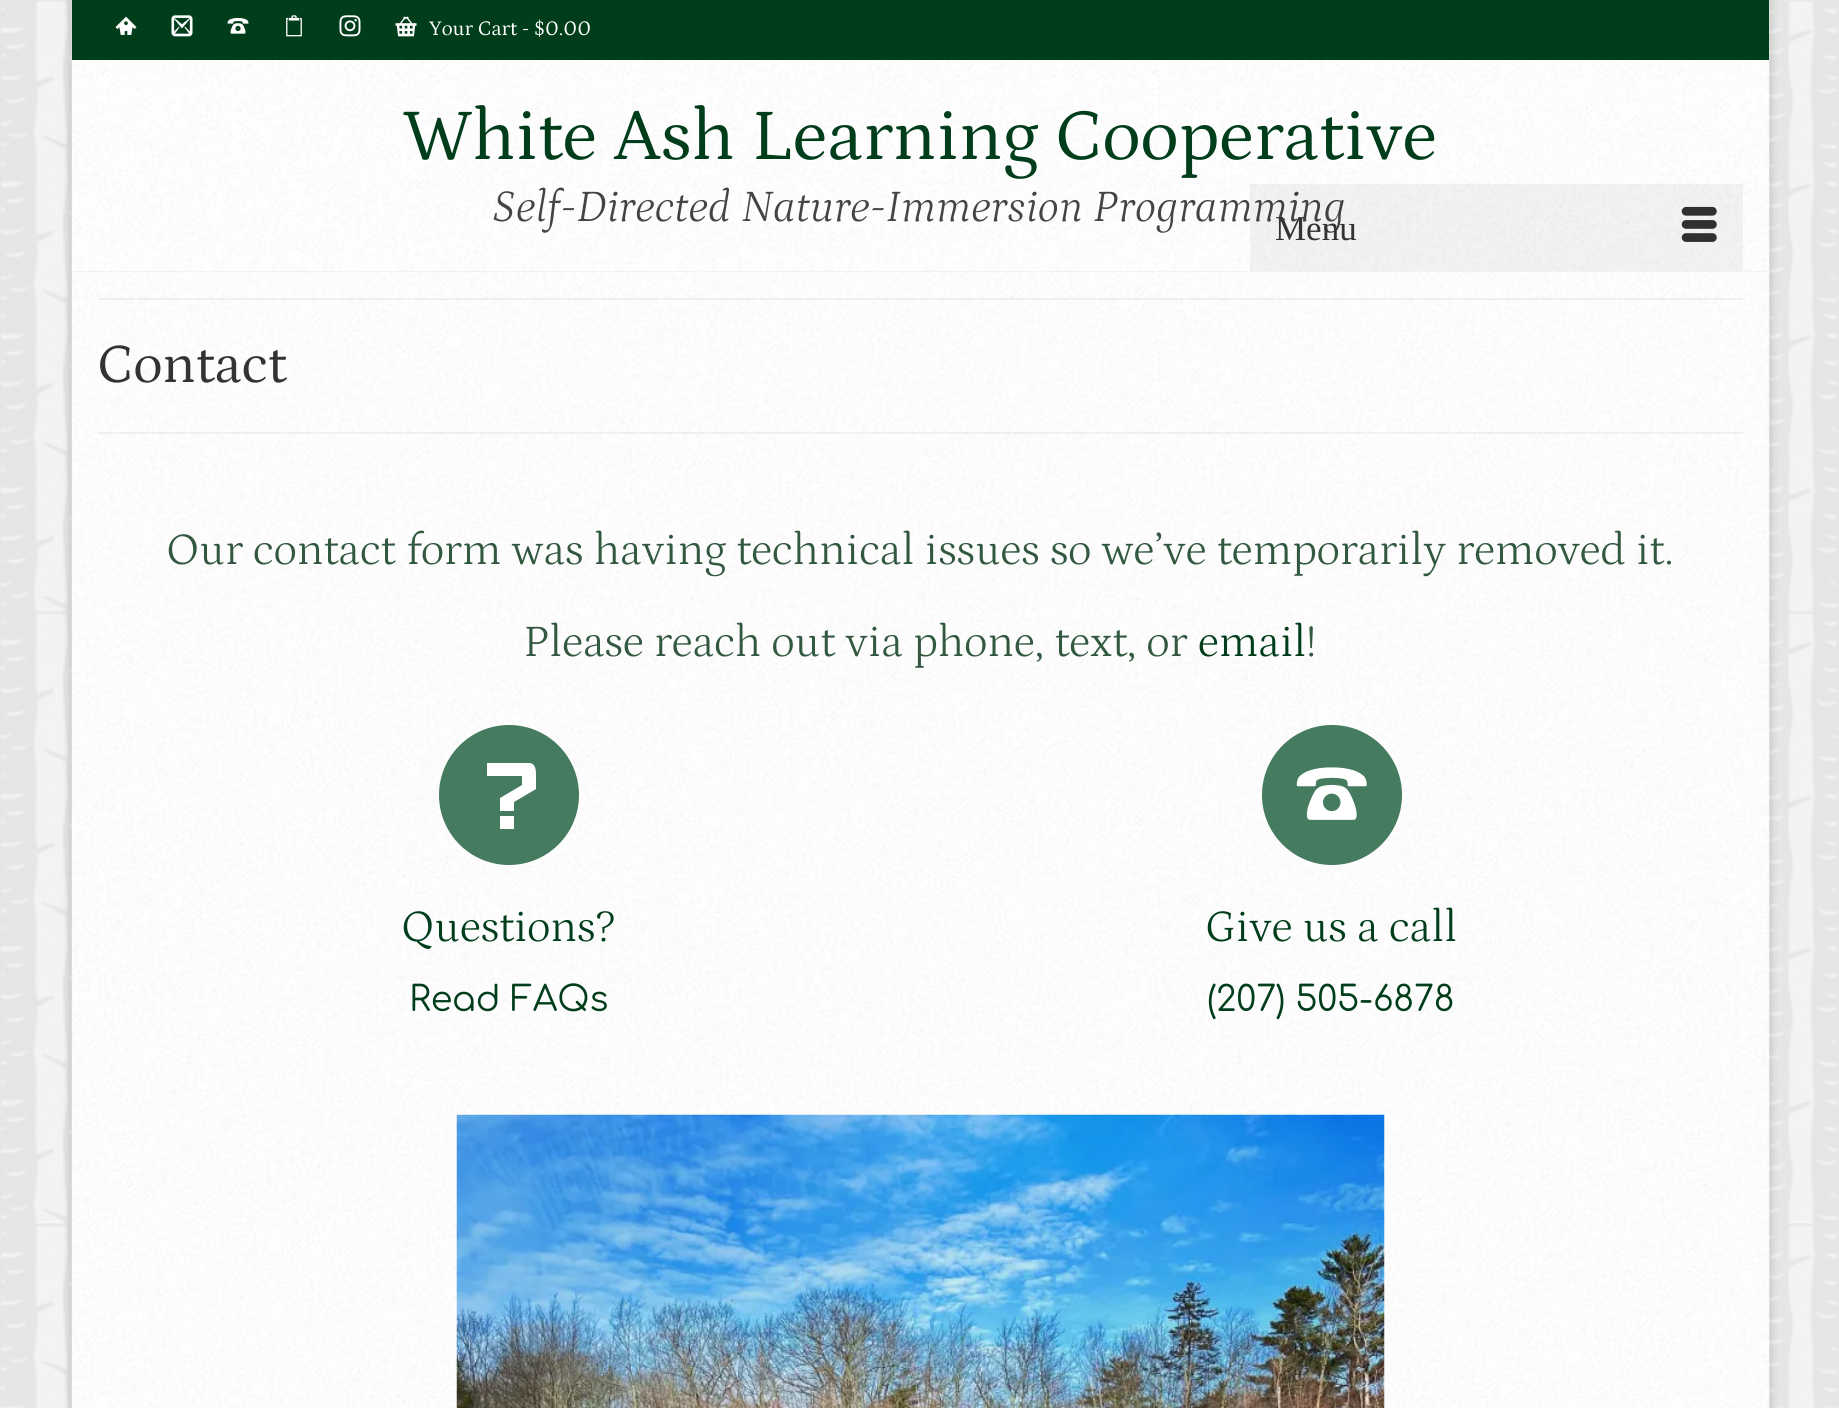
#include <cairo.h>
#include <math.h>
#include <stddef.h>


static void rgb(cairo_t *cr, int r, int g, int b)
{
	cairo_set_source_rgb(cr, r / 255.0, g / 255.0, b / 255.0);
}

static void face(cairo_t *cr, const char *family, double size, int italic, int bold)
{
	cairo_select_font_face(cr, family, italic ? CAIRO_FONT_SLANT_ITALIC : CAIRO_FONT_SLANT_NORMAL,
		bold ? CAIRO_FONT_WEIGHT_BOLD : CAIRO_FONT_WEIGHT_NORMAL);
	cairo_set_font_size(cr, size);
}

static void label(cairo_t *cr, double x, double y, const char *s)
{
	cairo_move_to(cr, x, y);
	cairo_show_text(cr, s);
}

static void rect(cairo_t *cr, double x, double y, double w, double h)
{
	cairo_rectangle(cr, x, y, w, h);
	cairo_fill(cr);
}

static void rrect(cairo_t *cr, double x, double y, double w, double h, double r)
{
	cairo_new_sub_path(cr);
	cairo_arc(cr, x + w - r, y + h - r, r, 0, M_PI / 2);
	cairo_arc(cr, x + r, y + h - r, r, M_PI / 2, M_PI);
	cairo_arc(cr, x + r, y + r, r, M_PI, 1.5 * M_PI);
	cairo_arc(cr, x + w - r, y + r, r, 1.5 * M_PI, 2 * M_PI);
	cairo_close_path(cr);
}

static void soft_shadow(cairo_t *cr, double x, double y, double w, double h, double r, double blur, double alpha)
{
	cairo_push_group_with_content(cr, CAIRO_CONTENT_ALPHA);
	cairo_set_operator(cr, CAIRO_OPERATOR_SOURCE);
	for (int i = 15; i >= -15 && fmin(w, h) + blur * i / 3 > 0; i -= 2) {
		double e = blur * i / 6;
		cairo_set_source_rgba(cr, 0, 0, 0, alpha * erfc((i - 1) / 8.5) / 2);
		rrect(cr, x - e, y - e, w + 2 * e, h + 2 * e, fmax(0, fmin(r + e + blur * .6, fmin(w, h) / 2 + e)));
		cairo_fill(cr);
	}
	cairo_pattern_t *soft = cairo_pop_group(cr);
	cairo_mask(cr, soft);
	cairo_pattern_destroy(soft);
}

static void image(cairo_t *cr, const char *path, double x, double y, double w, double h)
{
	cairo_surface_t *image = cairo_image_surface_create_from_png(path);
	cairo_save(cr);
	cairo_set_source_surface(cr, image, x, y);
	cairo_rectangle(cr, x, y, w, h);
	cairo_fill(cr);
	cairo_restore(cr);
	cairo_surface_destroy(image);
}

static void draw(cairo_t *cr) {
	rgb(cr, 255, 255, 255);
	cairo_paint(cr);
	image(cr, "image0.png", 0, 0, 1839, 1408);
	rgb(cr, 0, 0, 0);
	soft_shadow(cr, 70, -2, 1701, 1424, 0, 4.5, 0.16);
	image(cr, "image1.png", 71, 0, 1699, 272);
	rgb(cr, 0, 61, 27);
	rect(cr, 72, 0, 1697, 60);
	image(cr, "image2.png", 115, 16, 22, 19);
	image(cr, "image3.png", 171, 15, 22, 22);
	image(cr, "image4.png", 227, 17, 22, 17);
	image(cr, "image5.png", 286, 15, 16, 22);
	image(cr, "image6.png", 339, 15, 22, 22);
	image(cr, "image7.png", 395, 16, 22, 21);
	face(cr, "Petrona", 21, 0, 0);
	rgb(cr, 255, 255, 255);
	label(cr, 429, 35, "Your Cart - $0.00");
	face(cr, "Petrona", 73.5, 0, 0);
	rgb(cr, 0, 61, 27);
	label(cr, 403, 159, "White Ash Learning Cooperative");
	face(cr, "Petrona Light", 45.5, 1, 0);
	rgb(cr, 68, 68, 68);
	label(cr, 493, 221, "Self-Directed Nature-Immersion Programming");
	cairo_set_source_rgba(cr, 0, 0, 0, 0.05);
	rect(cr, 1250, 184, 493, 87);
	face(cr, "Liberation Serif", 35, 0, 0);
	rgb(cr, 51, 51, 51);
	label(cr, 1275, 240, "Menu");
	image(cr, "image8.png", 1681, 206, 36, 36);
	image(cr, "image9.png", 71, 271, 1699, 1137);
	cairo_set_source_rgba(cr, 0, 0, 0, 0.05);
	rect(cr, 98, 298, 1645, 2);
	rect(cr, 98, 432, 1645, 2);
	face(cr, "Petrona", 56, 0, 0);
	rgb(cr, 51, 51, 51);
	label(cr, 97, 382, "Contact");
	face(cr, "Petrona Light", 45.5, 0, 0);
	rgb(cr, 50, 88, 64);
	label(cr, 166, 564, "Our contact form was having technical issues so we’ve temporarily removed it.");
	label(cr, 523, 656, "Please reach out via phone, text, or");
	rgb(cr, 0, 61, 27);
	label(cr, 1198, 656, "email");
	rgb(cr, 50, 88, 64);
	label(cr, 1306, 656, "!");
	rgb(cr, 69, 123, 94);
	cairo_new_path(cr);
	cairo_arc(cr, 509, 795, 70, 0, 2 * M_PI);
	cairo_fill(cr);
	rgb(cr, 255, 255, 255);
	cairo_new_path(cr);
	cairo_move_to(cr, 500, 816);
	cairo_line_to(cr, 514, 816);
	cairo_line_to(cr, 514, 829);
	cairo_line_to(cr, 500, 829);
	cairo_close_path(cr);
	cairo_move_to(cr, 529, 763);
	cairo_curve_to(cr, 536, 763, 536, 771, 536, 776);
	cairo_line_to(cr, 536, 789);
	cairo_line_to(cr, 514, 802);
	cairo_line_to(cr, 514, 811);
	cairo_line_to(cr, 500, 811);
	cairo_line_to(cr, 500, 798);
	cairo_line_to(cr, 522, 785);
	cairo_line_to(cr, 522, 776);
	cairo_line_to(cr, 487, 776);
	cairo_line_to(cr, 487, 763);
	cairo_close_path(cr);
	cairo_fill(cr);
	rgb(cr, 0, 61, 27);
	label(cr, 401, 941, "Questions?");
	face(cr, "Comfortaa", 35, 0, 0);
	label(cr, 409, 1011, "Read FAQs");
	rgb(cr, 69, 123, 94);
	cairo_new_path(cr);
	cairo_arc(cr, 1332, 795, 70, 0, 2 * M_PI);
	cairo_fill(cr);
	image(cr, "image10.png", 1296, 767, 71, 53);
	face(cr, "Petrona Light", 45.5, 0, 0);
	rgb(cr, 0, 61, 27);
	label(cr, 1205, 941, "Give us a call");
	face(cr, "Comfortaa", 35, 0, 0);
	label(cr, 1207, 1011, "(207) 505-6878");
	image(cr, "image11.png", 456, 1114, 929, 294);
}

int main(void) {
	cairo_surface_t *surface = cairo_image_surface_create(CAIRO_FORMAT_RGB24, 1839, 1408);
	cairo_t *cr = cairo_create(surface);
	cairo_font_options_t *options = cairo_font_options_create();
	cairo_font_options_set_hint_metrics(options, CAIRO_HINT_METRICS_OFF);
	cairo_font_options_set_hint_style(options, CAIRO_HINT_STYLE_NONE);
	cairo_set_font_options(cr, options);
	cairo_set_miter_limit(cr, 4);
	draw(cr);
	cairo_surface_write_to_png(surface, "render.png");
	cairo_font_options_destroy(options);
	cairo_destroy(cr);
	cairo_surface_destroy(surface);
	return 0;
}
